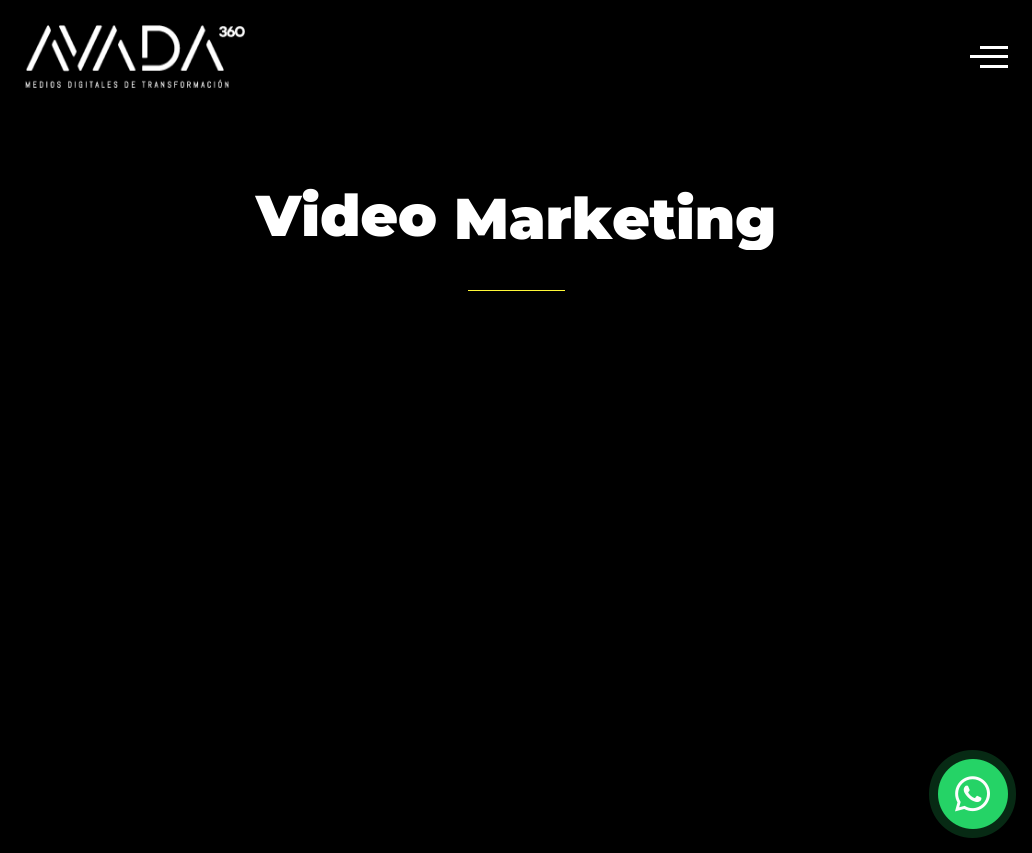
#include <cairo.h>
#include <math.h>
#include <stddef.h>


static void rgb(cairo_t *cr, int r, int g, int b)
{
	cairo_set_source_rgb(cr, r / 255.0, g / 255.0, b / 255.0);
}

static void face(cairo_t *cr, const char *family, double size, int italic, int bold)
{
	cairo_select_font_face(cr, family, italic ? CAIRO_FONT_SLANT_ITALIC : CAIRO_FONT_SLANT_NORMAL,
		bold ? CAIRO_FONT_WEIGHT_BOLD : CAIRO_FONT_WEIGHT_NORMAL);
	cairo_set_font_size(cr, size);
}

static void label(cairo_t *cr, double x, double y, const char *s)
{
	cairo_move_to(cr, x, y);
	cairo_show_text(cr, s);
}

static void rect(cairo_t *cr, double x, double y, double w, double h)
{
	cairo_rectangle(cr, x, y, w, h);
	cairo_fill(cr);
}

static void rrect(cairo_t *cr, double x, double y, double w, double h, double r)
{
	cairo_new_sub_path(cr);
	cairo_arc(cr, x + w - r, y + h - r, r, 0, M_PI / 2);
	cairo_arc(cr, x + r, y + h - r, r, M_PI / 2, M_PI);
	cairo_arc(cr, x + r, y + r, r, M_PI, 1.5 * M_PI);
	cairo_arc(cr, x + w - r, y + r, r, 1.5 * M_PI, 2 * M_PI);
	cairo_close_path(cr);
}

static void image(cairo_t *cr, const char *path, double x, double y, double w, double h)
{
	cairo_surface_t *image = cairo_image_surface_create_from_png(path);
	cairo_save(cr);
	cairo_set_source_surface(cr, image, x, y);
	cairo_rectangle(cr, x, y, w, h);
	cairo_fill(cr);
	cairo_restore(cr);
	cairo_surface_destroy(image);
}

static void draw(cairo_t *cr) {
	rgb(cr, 0, 0, 0);
	cairo_paint(cr);
	image(cr, "image0.png", 25, 25, 220, 63);
	rgb(cr, 255, 255, 255);
	rect(cr, 980, 46, 28, 3);
	rect(cr, 970, 55, 38, 3);
	rect(cr, 980, 65, 28, 3);
	face(cr, "Montserrat Black", 57.5, 0, 0);
	label(cr, 256, 236, "Video");
	cairo_save(cr);
	cairo_rectangle(cr, 91, 180, 850, 70);
	cairo_clip(cr);
	label(cr, 454, 239, "Marketing");
	cairo_restore(cr);
	rgb(cr, 255, 249, 55);
	rect(cr, 468, 290, 97, 1);
	rgb(cr, 37, 211, 102);
	cairo_new_path(cr);
	cairo_arc(cr, 973, 794, 35, 0, 2 * M_PI);
	cairo_fill(cr);
	cairo_set_source_rgba(cr, 0.145, 0.827, 0.4, 0.2);
	rrect(cr, 929, 750, 87, 88, 43.5);
	cairo_fill(cr);
	image(cr, "image1.png", 955, 776, 35, 36);
}

int main(void) {
	cairo_surface_t *surface = cairo_image_surface_create(CAIRO_FORMAT_RGB24, 1032, 853);
	cairo_t *cr = cairo_create(surface);
	cairo_font_options_t *options = cairo_font_options_create();
	cairo_font_options_set_hint_metrics(options, CAIRO_HINT_METRICS_OFF);
	cairo_font_options_set_hint_style(options, CAIRO_HINT_STYLE_NONE);
	cairo_set_font_options(cr, options);
	cairo_set_miter_limit(cr, 4);
	draw(cr);
	cairo_surface_write_to_png(surface, "render.png");
	cairo_font_options_destroy(options);
	cairo_destroy(cr);
	cairo_surface_destroy(surface);
	return 0;
}
